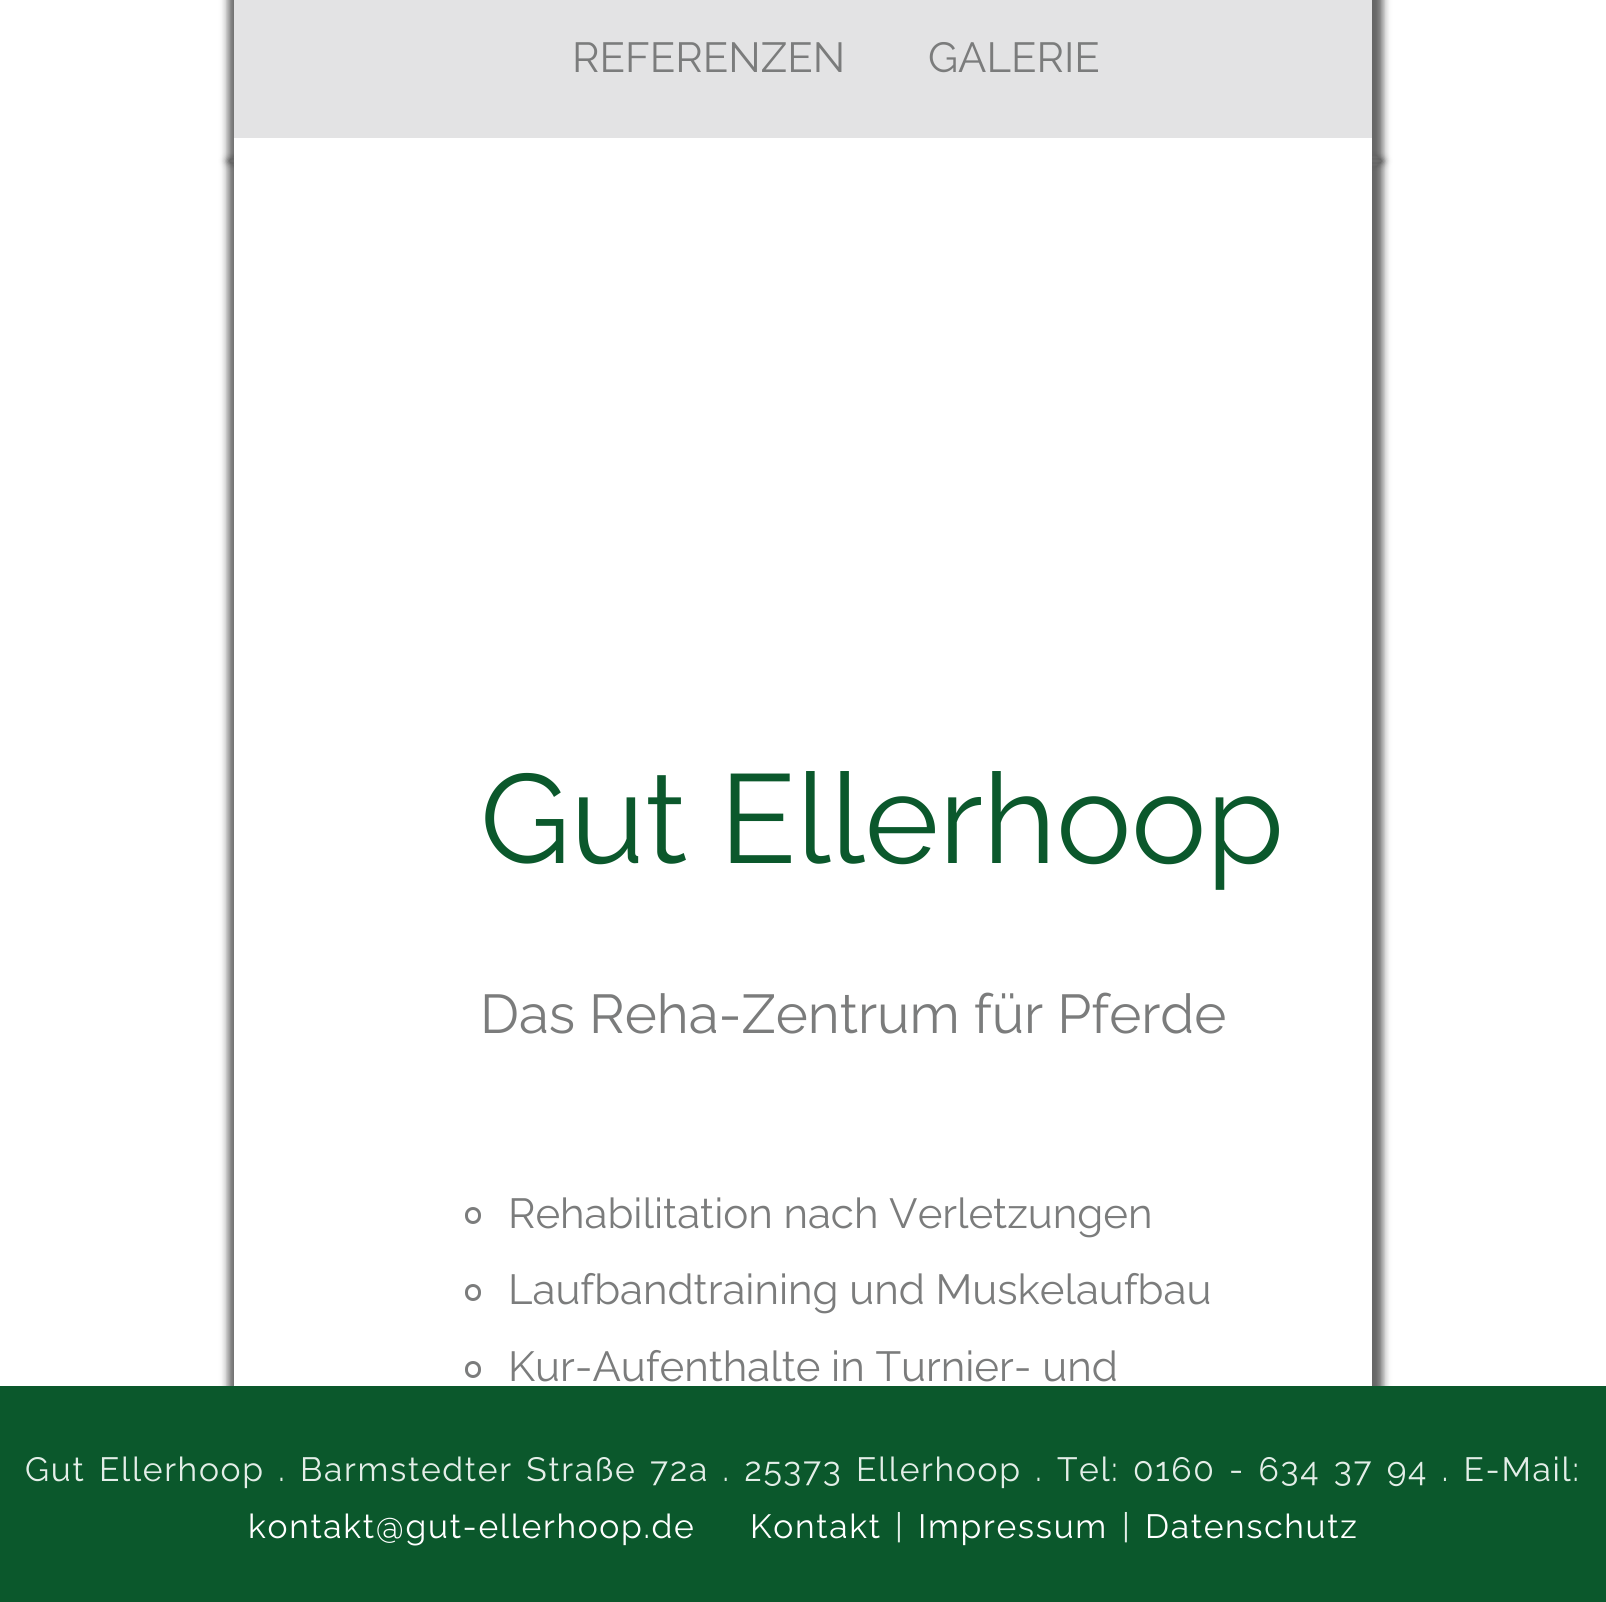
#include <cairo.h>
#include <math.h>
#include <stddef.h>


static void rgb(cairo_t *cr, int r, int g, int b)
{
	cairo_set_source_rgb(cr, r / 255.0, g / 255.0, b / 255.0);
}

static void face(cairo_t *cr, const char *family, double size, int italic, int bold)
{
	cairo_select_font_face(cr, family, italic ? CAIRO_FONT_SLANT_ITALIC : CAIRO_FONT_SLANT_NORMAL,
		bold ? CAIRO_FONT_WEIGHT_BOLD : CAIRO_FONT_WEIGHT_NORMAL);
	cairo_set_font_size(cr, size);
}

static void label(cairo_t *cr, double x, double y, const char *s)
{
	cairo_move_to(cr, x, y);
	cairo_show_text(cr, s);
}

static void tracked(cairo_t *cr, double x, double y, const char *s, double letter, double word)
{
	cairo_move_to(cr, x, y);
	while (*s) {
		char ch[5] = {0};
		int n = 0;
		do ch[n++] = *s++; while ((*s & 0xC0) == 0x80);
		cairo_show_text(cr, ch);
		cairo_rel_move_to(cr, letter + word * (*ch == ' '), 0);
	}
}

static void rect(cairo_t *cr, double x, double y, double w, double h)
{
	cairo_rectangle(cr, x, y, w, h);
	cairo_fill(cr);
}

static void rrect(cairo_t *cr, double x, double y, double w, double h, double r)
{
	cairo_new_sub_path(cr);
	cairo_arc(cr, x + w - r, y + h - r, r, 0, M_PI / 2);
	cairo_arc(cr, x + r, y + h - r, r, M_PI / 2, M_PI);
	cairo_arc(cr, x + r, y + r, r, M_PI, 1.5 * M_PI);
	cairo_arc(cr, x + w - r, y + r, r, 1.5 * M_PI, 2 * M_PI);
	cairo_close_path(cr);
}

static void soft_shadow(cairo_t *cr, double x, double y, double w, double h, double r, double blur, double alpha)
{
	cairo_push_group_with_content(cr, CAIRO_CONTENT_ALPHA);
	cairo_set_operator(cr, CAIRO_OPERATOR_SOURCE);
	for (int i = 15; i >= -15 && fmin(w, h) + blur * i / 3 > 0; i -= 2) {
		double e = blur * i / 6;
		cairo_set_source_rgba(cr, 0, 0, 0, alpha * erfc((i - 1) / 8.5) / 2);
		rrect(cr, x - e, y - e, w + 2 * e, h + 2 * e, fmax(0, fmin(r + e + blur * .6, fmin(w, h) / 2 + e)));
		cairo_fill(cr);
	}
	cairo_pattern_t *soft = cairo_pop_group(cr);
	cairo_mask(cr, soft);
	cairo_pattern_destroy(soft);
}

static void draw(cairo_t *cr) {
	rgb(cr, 255, 255, 255);
	cairo_paint(cr);
	rgb(cr, 0, 0, 0);
	soft_shadow(cr, 228, -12, 1155, 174, 0, 4, 0.6);
	rgb(cr, 227, 227, 228);
	rect(cr, 234, 0, 1138, 138);
	face(cr, "Raleway Thin", 42, 0, 0);
	rgb(cr, 123, 124, 124);
	label(cr, 572, 72, "REFERENZEN");
	label(cr, 928, 72, "GALERIE");
	rgb(cr, 0, 0, 0);
	soft_shadow(cr, 228, 160, 1155, 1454, 0, 4, 0.6);
	rgb(cr, 255, 255, 255);
	rect(cr, 234, 138, 1138, 1248);
	face(cr, "Raleway Thin", 126, 0, 0);
	rgb(cr, 11, 88, 44);
	label(cr, 480, 863, "Gut Ellerhoop");
	face(cr, "Raleway Thin", 54.6, 0, 0);
	rgb(cr, 123, 124, 124);
	label(cr, 480, 1033, "Das Reha-Zentrum für Pferde");
	rrect(cr, 466.5, 1208.5, 13, 14, 6.5);
	cairo_set_line_width(cr, 3);
	cairo_stroke(cr);
	face(cr, "Raleway Thin", 42, 0, 0);
	label(cr, 508, 1228, "Rehabilitation nach Verletzungen");
	rrect(cr, 466.5, 1285.5, 13, 14, 6.5);
	cairo_stroke(cr);
	label(cr, 508, 1304, "Laufbandtraining und Muskelaufbau");
	rrect(cr, 466.5, 1362.5, 13, 14, 6.5);
	cairo_stroke(cr);
	label(cr, 508, 1381, "Kur-Aufenthalte in Turnier- und");
	rgb(cr, 11, 88, 44);
	rect(cr, 0, 1386, 1606, 216);
	face(cr, "Raleway Thin", 33.6, 0, 0);
	rgb(cr, 228, 238, 232);
	tracked(cr, 25, 1481, "Gut Ellerhoop . Barmstedter Straße 72a . 25373 Ellerhoop . Tel: 0160 - 634 37 94 . E-Mail:", 1.68, 3.4);
	rgb(cr, 255, 255, 255);
	tracked(cr, 248, 1538, "kontakt@gut-ellerhoop.de", 1.68, 0);
	tracked(cr, 750, 1538, "Kontakt", 1.68, 0);
	rgb(cr, 228, 238, 232);
	tracked(cr, 895, 1538, "|", 1.68, 0);
	rgb(cr, 255, 255, 255);
	tracked(cr, 918, 1538, "Impressum", 1.68, 0);
	rgb(cr, 228, 238, 232);
	tracked(cr, 1122, 1538, "|", 1.68, 0);
	rgb(cr, 255, 255, 255);
	tracked(cr, 1145, 1538, "Datenschutz", 1.68, 0);
}

int main(void) {
	cairo_surface_t *surface = cairo_image_surface_create(CAIRO_FORMAT_RGB24, 1606, 1602);
	cairo_t *cr = cairo_create(surface);
	cairo_font_options_t *options = cairo_font_options_create();
	cairo_font_options_set_hint_metrics(options, CAIRO_HINT_METRICS_OFF);
	cairo_font_options_set_hint_style(options, CAIRO_HINT_STYLE_NONE);
	cairo_set_font_options(cr, options);
	cairo_set_miter_limit(cr, 4);
	draw(cr);
	cairo_surface_write_to_png(surface, "render.png");
	cairo_font_options_destroy(options);
	cairo_destroy(cr);
	cairo_surface_destroy(surface);
	return 0;
}
